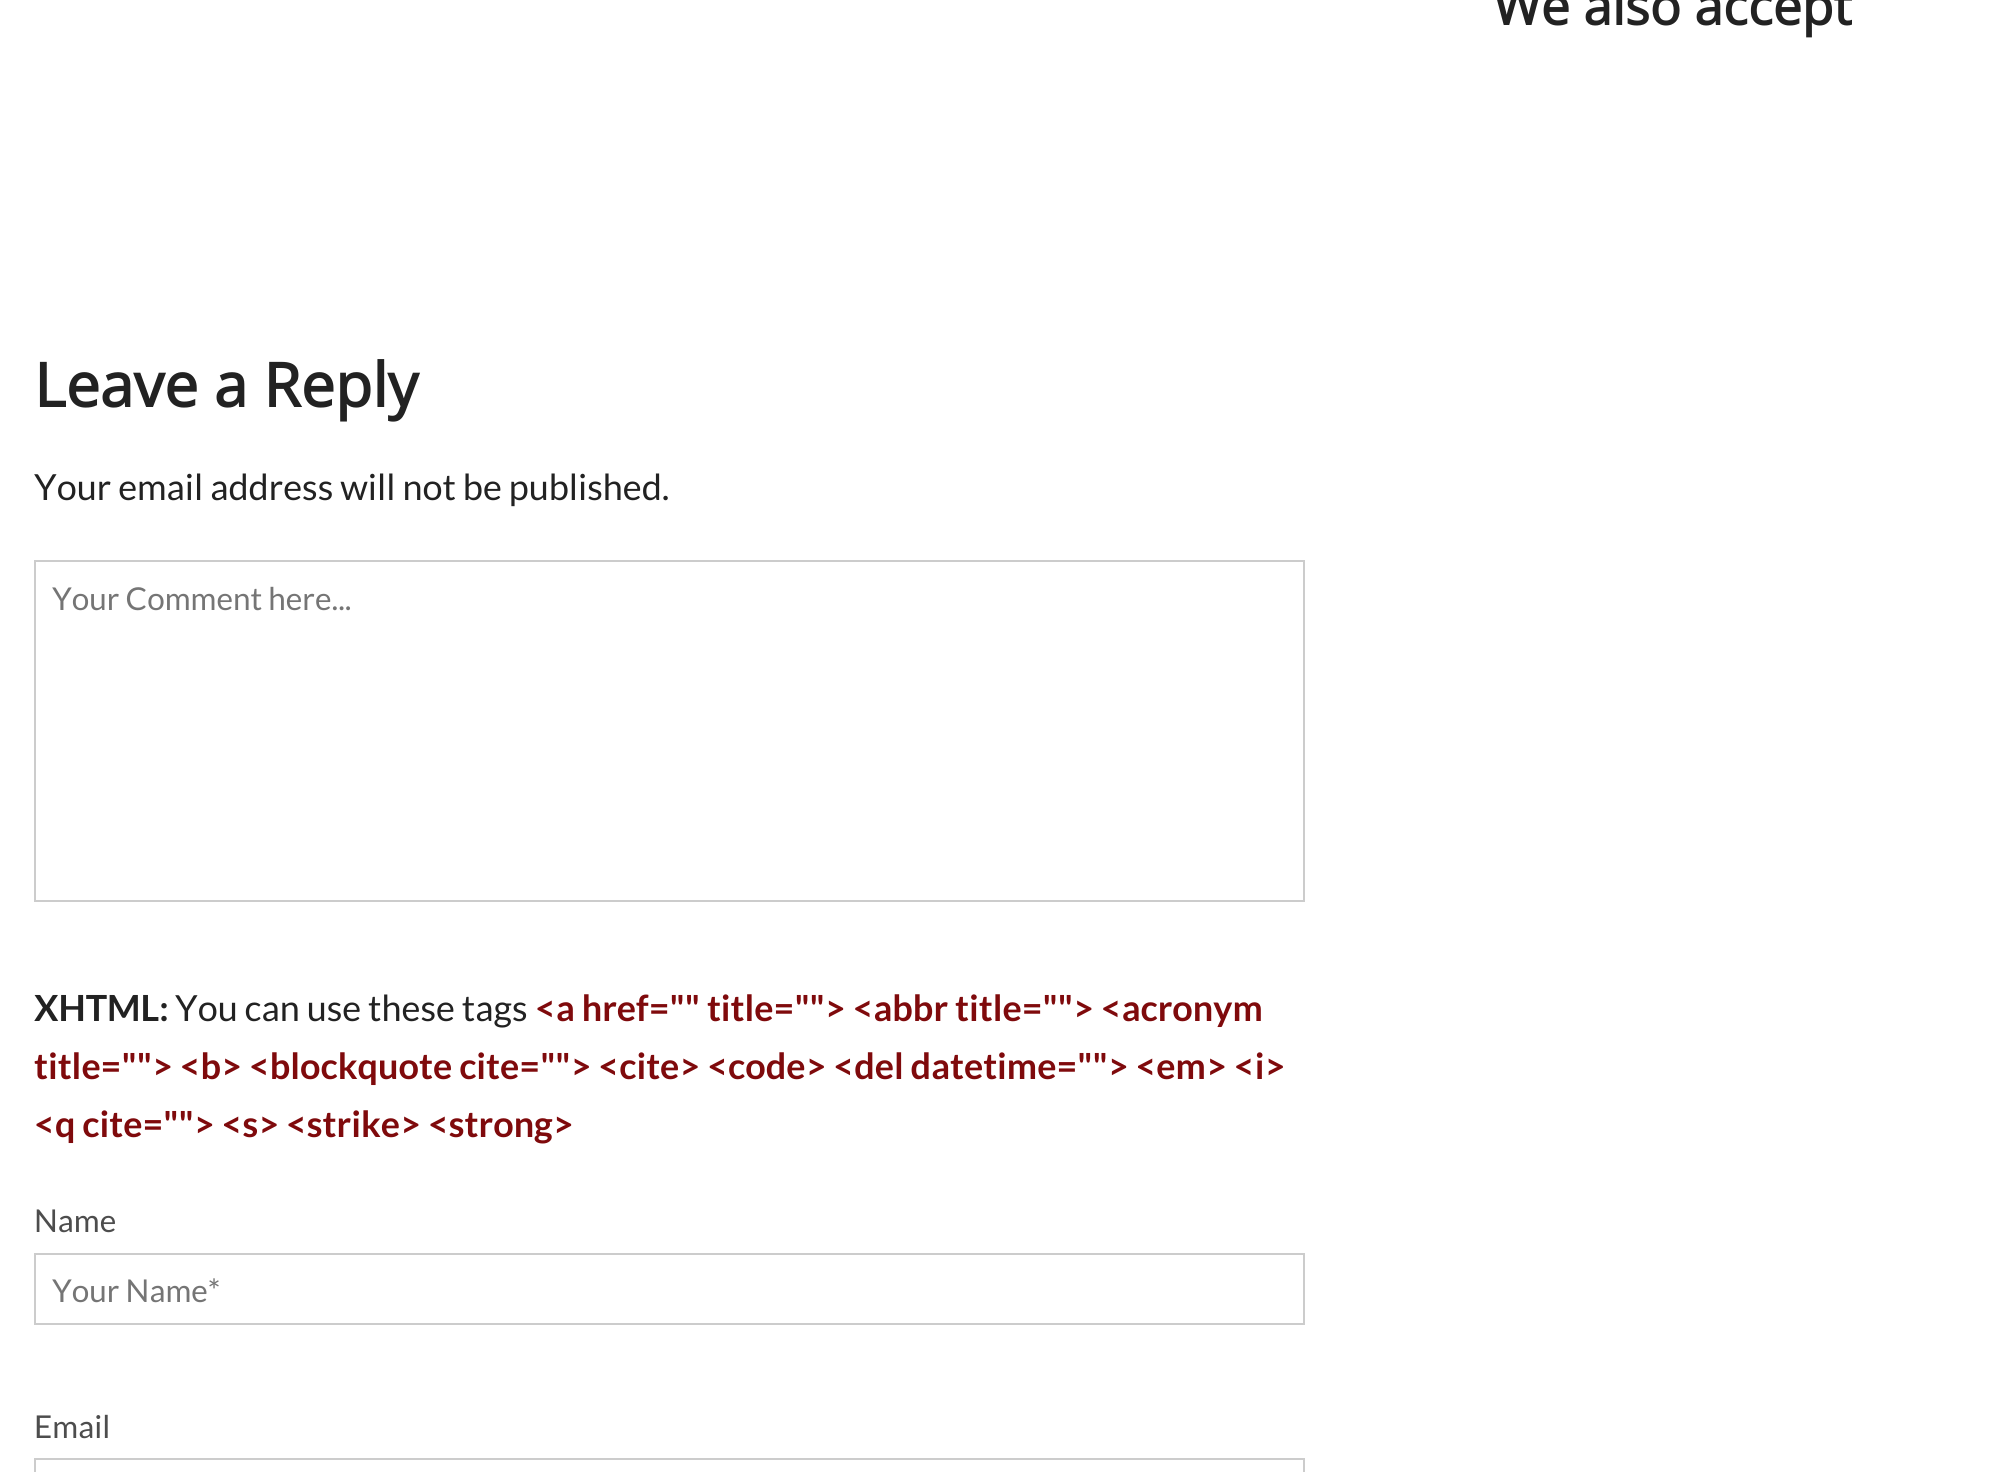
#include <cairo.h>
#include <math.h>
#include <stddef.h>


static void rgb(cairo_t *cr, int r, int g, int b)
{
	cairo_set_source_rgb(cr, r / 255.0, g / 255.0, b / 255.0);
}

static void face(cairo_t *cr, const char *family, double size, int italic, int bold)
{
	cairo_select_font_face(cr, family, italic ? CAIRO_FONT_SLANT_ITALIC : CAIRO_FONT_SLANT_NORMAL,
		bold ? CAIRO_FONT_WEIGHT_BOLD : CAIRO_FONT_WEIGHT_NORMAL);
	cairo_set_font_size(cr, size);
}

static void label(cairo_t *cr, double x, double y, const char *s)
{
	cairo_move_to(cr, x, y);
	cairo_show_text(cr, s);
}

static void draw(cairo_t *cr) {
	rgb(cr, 255, 255, 255);
	cairo_paint(cr);
	face(cr, "Open Sans", 51.75, 0, 1);
	rgb(cr, 34, 34, 34);
	label(cr, 1493, 25, "We also accept");
	face(cr, "Open Sans", 60.75, 0, 1);
	label(cr, 34, 407, "Leave a Reply");
	face(cr, "Lato", 36, 0, 0);
	label(cr, 34, 500, "Your email address will not be published.");
	cairo_rectangle(cr, 35, 561, 1269, 340);
	rgb(cr, 204, 204, 204);
	cairo_stroke(cr);
	face(cr, "Lato", 31.5, 0, 0);
	rgb(cr, 117, 117, 117);
	label(cr, 52, 610, "Your Comment here...");
	face(cr, "Lato", 36, 0, 1);
	rgb(cr, 34, 34, 34);
	label(cr, 34, 1021, "XHTML:");
	face(cr, "Lato", 36, 0, 0);
	label(cr, 175, 1021, "You can use these tags");
	face(cr, "Lato", 36, 0, 1);
	rgb(cr, 127, 10, 12);
	label(cr, 535, 1021, "<a href=\"\" title=\"\"> <abbr title=\"\"> <acronym");
	label(cr, 34, 1079, "title=\"\"> <b> <blockquote cite=\"\"> <cite> <code> <del datetime=\"\"> <em> <i>");
	label(cr, 34, 1137, "<q cite=\"\"> <s> <strike> <strong>");
	face(cr, "Lato", 31.5, 0, 0);
	rgb(cr, 77, 77, 77);
	label(cr, 34, 1232, "Name");
	cairo_rectangle(cr, 35, 1254, 1269, 70);
	rgb(cr, 204, 204, 204);
	cairo_stroke(cr);
	rgb(cr, 117, 117, 117);
	label(cr, 52, 1302, "Your Name*");
	rgb(cr, 77, 77, 77);
	label(cr, 34, 1438, "Email");
	cairo_rectangle(cr, 35, 1459, 1269, 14);
	rgb(cr, 204, 204, 204);
	cairo_stroke(cr);
}

int main(void) {
	cairo_surface_t *surface = cairo_image_surface_create(CAIRO_FORMAT_RGB24, 2006, 1472);
	cairo_t *cr = cairo_create(surface);
	cairo_font_options_t *options = cairo_font_options_create();
	cairo_font_options_set_hint_metrics(options, CAIRO_HINT_METRICS_OFF);
	cairo_font_options_set_hint_style(options, CAIRO_HINT_STYLE_NONE);
	cairo_set_font_options(cr, options);
	cairo_set_miter_limit(cr, 4);
	draw(cr);
	cairo_surface_write_to_png(surface, "render.png");
	cairo_font_options_destroy(options);
	cairo_destroy(cr);
	cairo_surface_destroy(surface);
	return 0;
}
